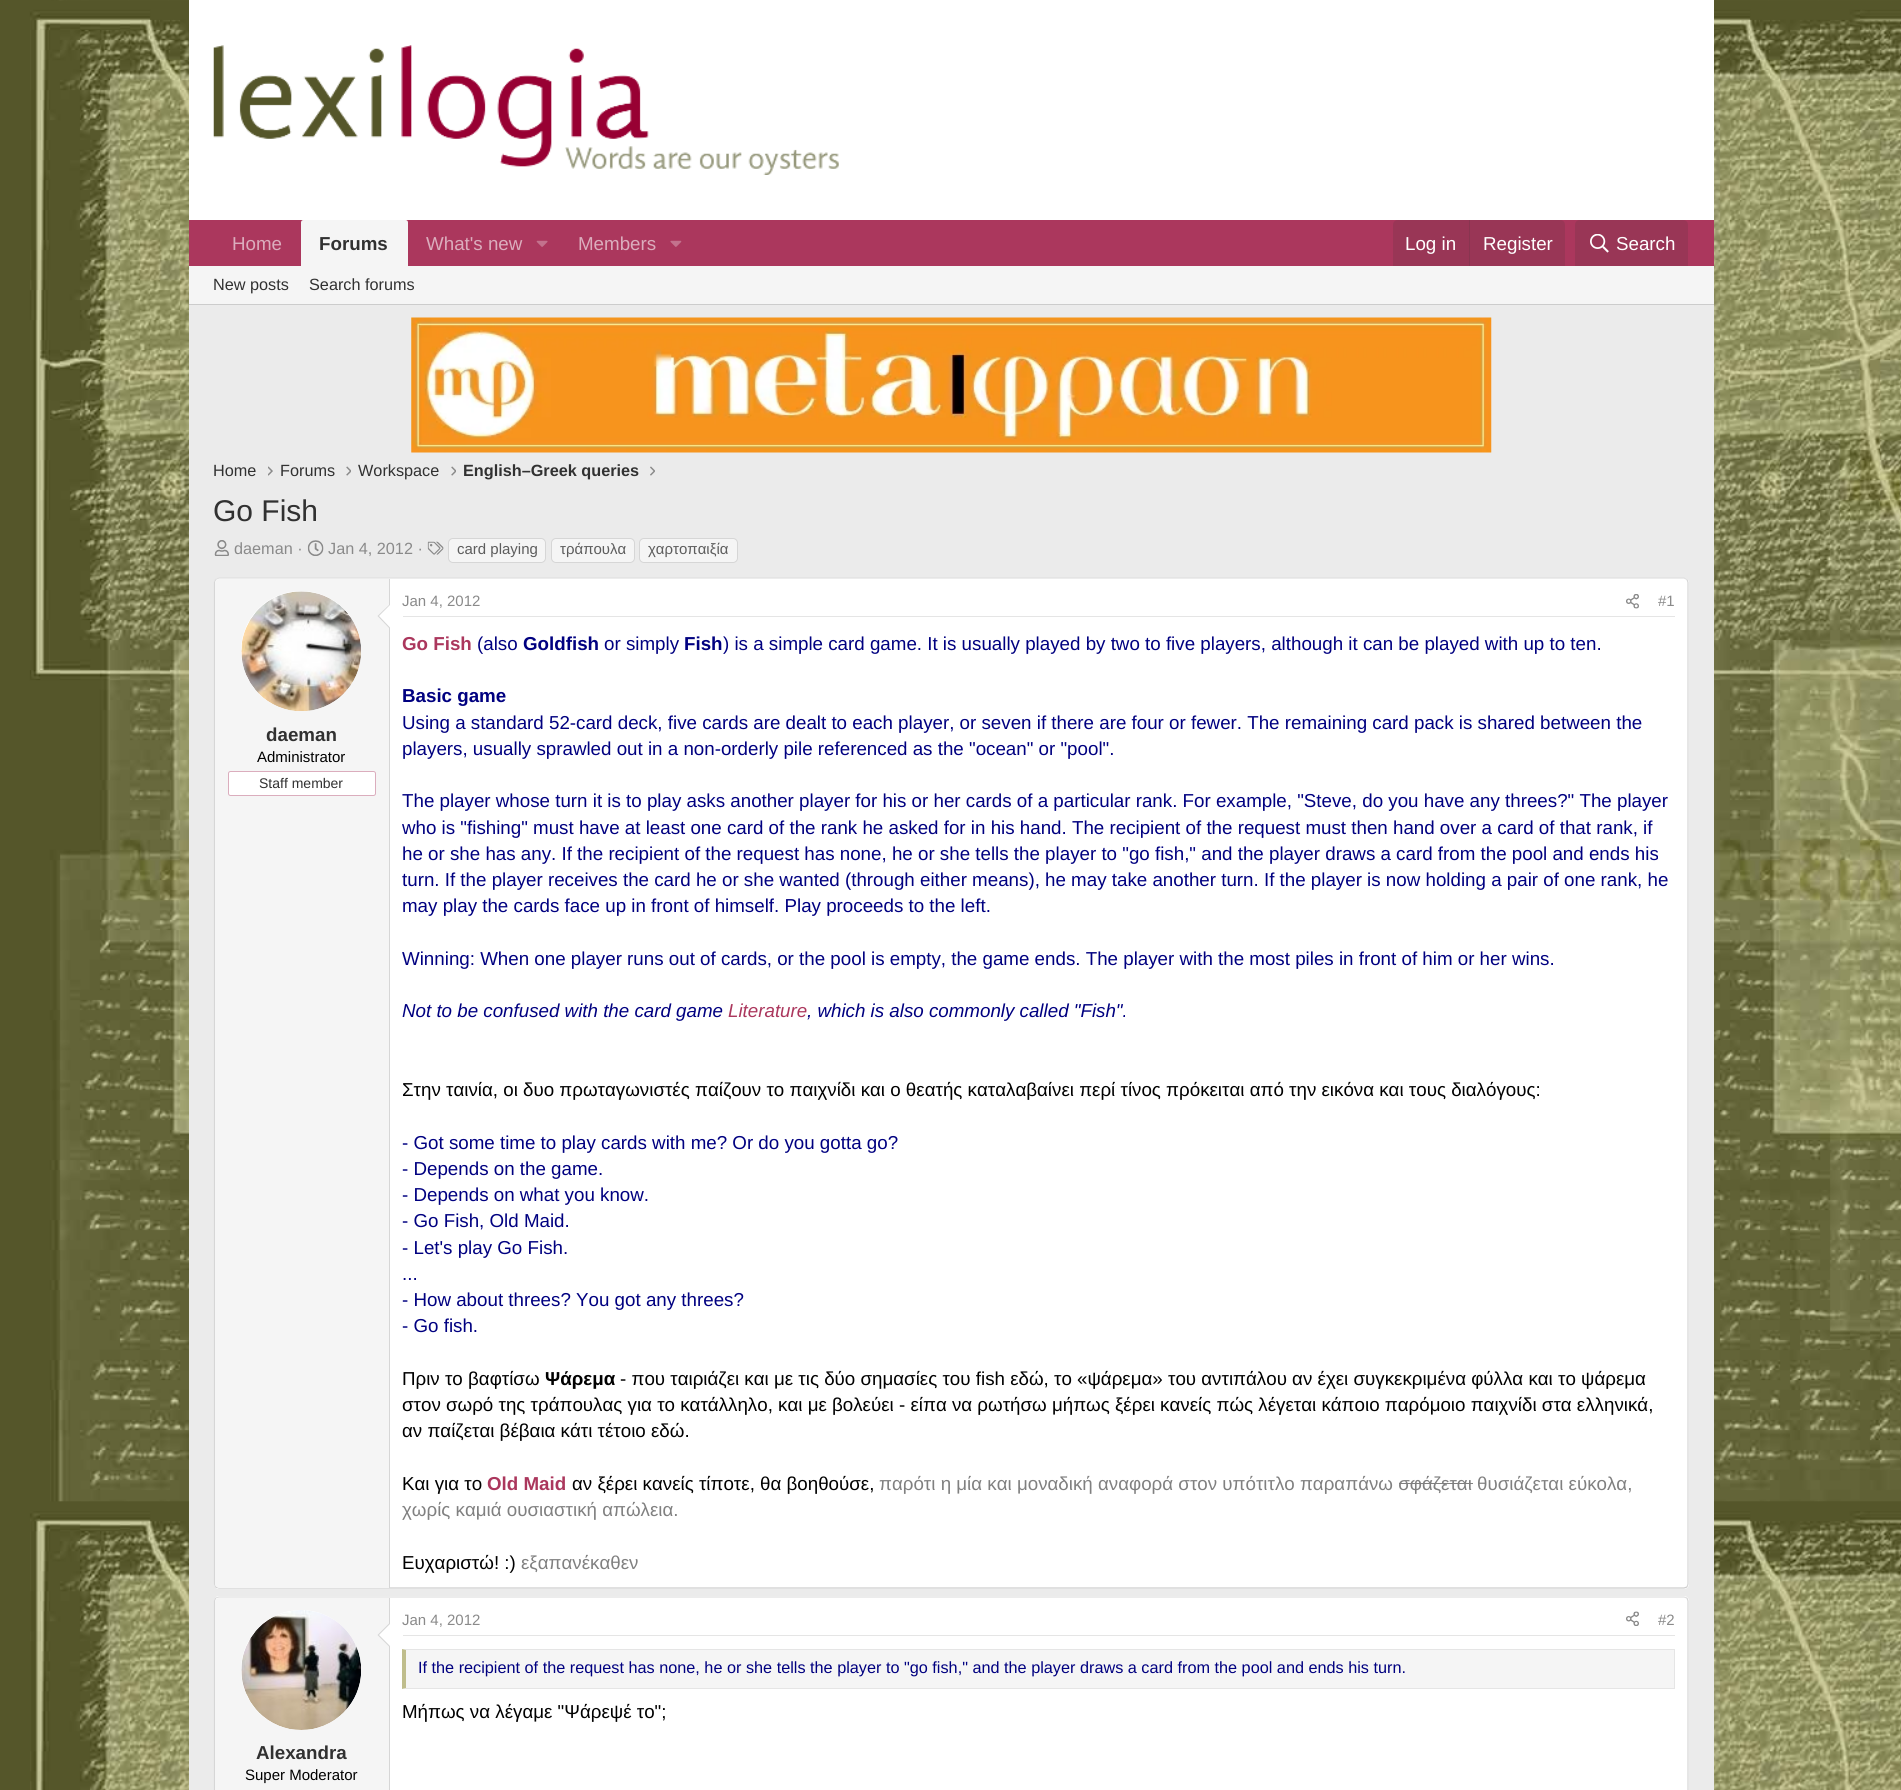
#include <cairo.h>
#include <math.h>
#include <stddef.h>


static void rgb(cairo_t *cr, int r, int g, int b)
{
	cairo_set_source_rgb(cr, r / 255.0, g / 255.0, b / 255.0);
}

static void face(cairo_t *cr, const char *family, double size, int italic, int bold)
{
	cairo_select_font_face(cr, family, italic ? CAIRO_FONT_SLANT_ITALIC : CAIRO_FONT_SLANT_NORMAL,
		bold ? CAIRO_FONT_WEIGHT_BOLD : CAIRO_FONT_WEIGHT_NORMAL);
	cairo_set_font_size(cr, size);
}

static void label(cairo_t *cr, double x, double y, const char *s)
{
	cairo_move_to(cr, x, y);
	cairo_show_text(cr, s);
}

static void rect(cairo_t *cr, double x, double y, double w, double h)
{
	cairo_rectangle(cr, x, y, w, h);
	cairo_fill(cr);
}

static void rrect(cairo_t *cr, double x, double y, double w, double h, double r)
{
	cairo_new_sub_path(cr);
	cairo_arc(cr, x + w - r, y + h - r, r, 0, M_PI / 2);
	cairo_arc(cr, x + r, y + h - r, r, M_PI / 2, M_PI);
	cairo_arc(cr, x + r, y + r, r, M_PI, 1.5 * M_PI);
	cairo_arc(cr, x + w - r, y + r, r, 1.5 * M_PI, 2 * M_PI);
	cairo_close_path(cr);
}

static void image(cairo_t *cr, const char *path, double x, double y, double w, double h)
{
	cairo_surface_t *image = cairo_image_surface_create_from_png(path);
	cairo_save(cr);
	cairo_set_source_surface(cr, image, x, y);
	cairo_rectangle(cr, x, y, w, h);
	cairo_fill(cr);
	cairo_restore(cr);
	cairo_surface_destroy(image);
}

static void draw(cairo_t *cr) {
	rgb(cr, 255, 255, 255);
	cairo_paint(cr);
	image(cr, "image0.png", 0, 0, 1901, 1790);
	rgb(cr, 235, 235, 235);
	rect(cr, 189, 305, 1525, 1485);
	rgb(cr, 255, 255, 255);
	rect(cr, 189, 0, 1525, 220);
	image(cr, "image1.png", 213, 45, 626, 130);
	rgb(cr, 171, 55, 93);
	rect(cr, 189, 220, 1525, 46);
	face(cr, "Liberation Sans", 18.75, 0, 0);
	rgb(cr, 219, 173, 189);
	label(cr, 232, 250, "Home");
	rgb(cr, 245, 245, 245);
	cairo_new_path(cr);
	cairo_move_to(cr, 303.5, 220);
	cairo_line_to(cr, 405.5, 220);
	cairo_curve_to(cr, 407, 220, 408, 221, 408, 222.5);
	cairo_line_to(cr, 408, 266);
	cairo_line_to(cr, 301, 266);
	cairo_line_to(cr, 301, 222.5);
	cairo_curve_to(cr, 301, 221, 302, 220, 303.5, 220);
	cairo_close_path(cr);
	cairo_fill(cr);
	face(cr, "Liberation Sans", 18.75, 0, 1);
	rgb(cr, 49, 49, 49);
	label(cr, 319, 250, "Forums");
	face(cr, "Liberation Sans", 18.75, 0, 0);
	rgb(cr, 219, 173, 189);
	label(cr, 426, 250, "What's new");
	image(cr, "image2.png", 536, 240, 12, 7);
	label(cr, 578, 250, "Members");
	image(cr, "image3.png", 670, 240, 12, 7);
	rgb(cr, 153, 54, 86);
	cairo_new_path(cr);
	cairo_move_to(cr, 1398, 220);
	cairo_line_to(cr, 1560, 220);
	cairo_curve_to(cr, 1563, 220, 1565, 222, 1565, 225);
	cairo_line_to(cr, 1565, 266);
	cairo_line_to(cr, 1393, 266);
	cairo_line_to(cr, 1393, 225);
	cairo_curve_to(cr, 1393, 222, 1395, 220, 1398, 220);
	cairo_close_path(cr);
	cairo_fill(cr);
	rgb(cr, 255, 255, 255);
	label(cr, 1405, 250, "Log in");
	rgb(cr, 137, 53, 80);
	rect(cr, 1469, 220, 1, 46);
	rgb(cr, 255, 255, 255);
	label(cr, 1483, 250, "Register");
	rgb(cr, 153, 54, 86);
	cairo_new_path(cr);
	cairo_move_to(cr, 1580, 220);
	cairo_line_to(cr, 1683, 220);
	cairo_curve_to(cr, 1686, 220, 1688, 222, 1688, 225);
	cairo_line_to(cr, 1688, 266);
	cairo_line_to(cr, 1575, 266);
	cairo_line_to(cr, 1575, 225);
	cairo_curve_to(cr, 1575, 222, 1577, 220, 1580, 220);
	cairo_close_path(cr);
	cairo_fill(cr);
	image(cr, "image4.png", 1590, 234, 19, 19);
	rgb(cr, 255, 255, 255);
	label(cr, 1616, 250, "Search");
	rgb(cr, 245, 245, 245);
	rect(cr, 189, 266, 1525, 38);
	rgb(cr, 204, 204, 204);
	rect(cr, 189, 304, 1525, 1);
	face(cr, "Liberation Sans", 16.25, 0, 0);
	rgb(cr, 49, 49, 49);
	label(cr, 213, 290, "New posts");
	label(cr, 309, 290, "Search forums");
	image(cr, "image5.png", 411, 317, 1081, 136);
	label(cr, 213, 476, "Home");
	image(cr, "image6.png", 268, 466, 5, 10);
	label(cr, 280, 476, "Forums");
	image(cr, "image7.png", 346, 466, 5, 10);
	label(cr, 358, 476, "Workspace");
	image(cr, "image7.png", 451, 466, 5, 10);
	face(cr, "Liberation Sans", 16.25, 0, 1);
	label(cr, 463, 476, "English–Greek queries");
	image(cr, "image8.png", 650, 466, 5, 10);
	face(cr, "Liberation Sans", 30, 0, 0);
	label(cr, 213, 521, "Go Fish");
	image(cr, "image9.png", 214, 540, 15, 16);
	face(cr, "Liberation Sans", 16.25, 0, 0);
	rgb(cr, 138, 138, 138);
	label(cr, 234, 554, "daeman ·");
	image(cr, "image10.png", 307, 540, 17, 16);
	label(cr, 328, 554, "Jan 4, 2012 ·");
	image(cr, "image11.png", 427, 541, 17, 14);
	rgb(cr, 245, 245, 245);
	rrect(cr, 448.5, 538.5, 97, 24, 4.5);
	cairo_fill_preserve(cr);
	rgb(cr, 214, 214, 214);
	cairo_set_line_width(cr, 1);
	cairo_stroke(cr);
	face(cr, "Liberation Sans", 15, 0, 0);
	rgb(cr, 93, 93, 93);
	label(cr, 457, 554, "card playing");
	rgb(cr, 245, 245, 245);
	rrect(cr, 551.5, 538.5, 83, 24, 4.5);
	cairo_fill_preserve(cr);
	rgb(cr, 214, 214, 214);
	cairo_stroke(cr);
	rgb(cr, 93, 93, 93);
	label(cr, 560, 554, "τράπουλα");
	rgb(cr, 245, 245, 245);
	rrect(cr, 639.5, 538.5, 98, 24, 4.5);
	cairo_fill_preserve(cr);
	rgb(cr, 214, 214, 214);
	cairo_stroke(cr);
	rgb(cr, 93, 93, 93);
	label(cr, 648, 554, "χαρτοπαιξία");
	rgb(cr, 255, 255, 255);
	rrect(cr, 214, 578, 1475, 1011, 5);
	cairo_fill(cr);
	cairo_new_path(cr);
	cairo_move_to(cr, 215.5, 579.5);
	cairo_line_to(cr, 219, 578);
	cairo_line_to(cr, 1684, 578);
	cairo_line_to(cr, 1687, 579.5);
	rgb(cr, 224, 224, 224);
	cairo_set_line_width(cr, 1.2);
	cairo_stroke(cr);
	cairo_new_path(cr);
	cairo_move_to(cr, 1687, 579.5);
	cairo_line_to(cr, 1688, 582.5);
	cairo_line_to(cr, 1688, 1584);
	cairo_line_to(cr, 1687, 1587);
	rgb(cr, 214, 214, 214);
	cairo_stroke(cr);
	cairo_new_path(cr);
	cairo_move_to(cr, 1687, 1587);
	cairo_line_to(cr, 1684, 1588);
	cairo_line_to(cr, 219, 1588);
	cairo_line_to(cr, 215.5, 1587);
	rgb(cr, 204, 204, 204);
	cairo_stroke(cr);
	cairo_new_path(cr);
	cairo_move_to(cr, 215.5, 1587);
	cairo_line_to(cr, 214.5, 1584);
	cairo_line_to(cr, 214.5, 582.5);
	cairo_line_to(cr, 215.5, 579.5);
	rgb(cr, 214, 214, 214);
	cairo_stroke(cr);
	rgb(cr, 245, 245, 245);
	cairo_new_path(cr);
	cairo_move_to(cr, 219, 579);
	cairo_line_to(cr, 390, 579);
	cairo_line_to(cr, 390, 1588);
	cairo_line_to(cr, 219, 1588);
	cairo_curve_to(cr, 217, 1588, 215, 1586, 215, 1584);
	cairo_line_to(cr, 215, 583);
	cairo_curve_to(cr, 215, 581, 217, 579, 219, 579);
	cairo_close_path(cr);
	cairo_fill(cr);
	rgb(cr, 214, 214, 214);
	rect(cr, 389, 579, 1, 1009);
	rgb(cr, 255, 255, 255);
	cairo_arc(cr, 301, 651, 60, 0, 2 * M_PI);
	cairo_fill(cr);
	image(cr, "image12.png", 241, 591, 120, 120);
	rgb(cr, 214, 214, 214);
	cairo_new_path(cr);
	cairo_move_to(cr, 390, 604);
	cairo_line_to(cr, 390, 629);
	cairo_line_to(cr, 377.5, 616);
	cairo_close_path(cr);
	cairo_fill(cr);
	rgb(cr, 255, 255, 255);
	cairo_new_path(cr);
	cairo_move_to(cr, 390, 605);
	cairo_line_to(cr, 390, 627.5);
	cairo_line_to(cr, 379, 616);
	cairo_close_path(cr);
	cairo_fill(cr);
	face(cr, "Liberation Sans", 18.75, 0, 1);
	rgb(cr, 49, 49, 49);
	label(cr, 266, 741, "daeman");
	face(cr, "Liberation Sans", 15, 0, 0);
	rgb(cr, 0, 0, 0);
	label(cr, 257, 762, "Administrator");
	rgb(cr, 255, 255, 255);
	rrect(cr, 228.5, 771.5, 147, 24, 2);
	cairo_fill_preserve(cr);
	rgb(cr, 219, 173, 189);
	cairo_set_line_width(cr, 1);
	cairo_stroke(cr);
	face(cr, "Liberation Sans", 14, 0, 0);
	rgb(cr, 49, 49, 49);
	label(cr, 259, 788, "Staff member");
	rgb(cr, 229, 229, 229);
	rect(cr, 403, 616, 1272, 1);
	face(cr, "Liberation Sans", 15, 0, 0);
	rgb(cr, 138, 138, 138);
	label(cr, 402, 606, "Jan 4, 2012");
	image(cr, "image13.png", 1626, 594, 13, 15);
	label(cr, 1658, 606, "#1");
	face(cr, "Liberation Sans", 18.75, 0, 1);
	rgb(cr, 171, 55, 93);
	label(cr, 402, 650, "Go Fish");
	face(cr, "Liberation Sans", 18.75, 0, 0);
	rgb(cr, 0, 0, 128);
	label(cr, 477, 650, "(also");
	face(cr, "Liberation Sans", 18.75, 0, 1);
	label(cr, 523, 650, "Goldfish");
	face(cr, "Liberation Sans", 18.75, 0, 0);
	label(cr, 604, 650, "or simply");
	face(cr, "Liberation Sans", 18.75, 0, 1);
	label(cr, 684, 650, "Fish");
	face(cr, "Liberation Sans", 18.75, 0, 0);
	label(cr, 723, 650, ") is a simple card game. It is usually played by two to five players, although it can be played with up to ten.");
	face(cr, "Liberation Sans", 18.75, 0, 1);
	label(cr, 402, 702, "Basic game");
	face(cr, "Liberation Sans", 18.75, 0, 0);
	label(cr, 402, 729, "Using a standard 52-card deck, five cards are dealt to each player, or seven if there are four or fewer. The remaining card pack is shared between the");
	label(cr, 402, 755, "players, usually sprawled out in a non-orderly pile referenced as the \"ocean\" or \"pool\".");
	label(cr, 402, 807, "The player whose turn it is to play asks another player for his or her cards of a particular rank. For example, \"Steve, do you have any threes?\" The player");
	label(cr, 402, 834, "who is \"fishing\" must have at least one card of the rank he asked for in his hand. The recipient of the request must then hand over a card of that rank, if");
	label(cr, 402, 860, "he or she has any. If the recipient of the request has none, he or she tells the player to \"go fish,\" and the player draws a card from the pool and ends his");
	label(cr, 402, 886, "turn. If the player receives the card he or she wanted (through either means), he may take another turn. If the player is now holding a pair of one rank, he");
	label(cr, 402, 912, "may play the cards face up in front of himself. Play proceeds to the left.");
	label(cr, 402, 965, "Winning: When one player runs out of cards, or the pool is empty, the game ends. The player with the most piles in front of him or her wins.");
	face(cr, "Liberation Sans", 18.75, 1, 0);
	label(cr, 402, 1017, "Not to be confused with the card game");
	rgb(cr, 171, 55, 93);
	label(cr, 728, 1017, "Literature");
	rgb(cr, 0, 0, 128);
	label(cr, 807, 1017, ", which is also commonly called \"Fish\".");
	face(cr, "Liberation Sans", 18.75, 0, 0);
	rgb(cr, 0, 0, 0);
	label(cr, 402, 1096, "Στην ταινία, οι δυο πρωταγωνιστές παίζουν το παιχνίδι και ο θεατής καταλαβαίνει περί τίνος πρόκειται από την εικόνα και τους διαλόγους:");
	rgb(cr, 0, 0, 128);
	label(cr, 402, 1149, "- Got some time to play cards with me? Or do you gotta go?");
	label(cr, 402, 1175, "- Depends on the game.");
	label(cr, 402, 1201, "- Depends on what you know.");
	label(cr, 402, 1227, "- Go Fish, Old Maid.");
	label(cr, 402, 1254, "- Let's play Go Fish.");
	label(cr, 402, 1280, "...");
	label(cr, 402, 1306, "- How about threes? You got any threes?");
	label(cr, 402, 1332, "- Go fish.");
	rgb(cr, 0, 0, 0);
	label(cr, 402, 1385, "Πριν το βαφτίσω");
	face(cr, "Liberation Sans", 18.75, 0, 1);
	label(cr, 545, 1385, "Ψάρεμα");
	face(cr, "Liberation Sans", 18.75, 0, 0);
	label(cr, 620, 1385, "- που ταιριάζει και με τις δύο σημασίες του fish εδώ, το «ψάρεμα» του αντιπάλου αν έχει συγκεκριμένα φύλλα και το ψάρεμα");
	label(cr, 402, 1411, "στον σωρό της τράπουλας για το κατάλληλο, και με βολεύει - είπα να ρωτήσω μήπως ξέρει κανείς πώς λέγεται κάποιο παρόμοιο παιχνίδι στα ελληνικά,");
	label(cr, 402, 1437, "αν παίζεται βέβαια κάτι τέτοιο εδώ.");
	label(cr, 402, 1490, "Και για το");
	face(cr, "Liberation Sans", 18.75, 0, 1);
	rgb(cr, 171, 55, 93);
	label(cr, 487, 1490, "Old Maid");
	face(cr, "Liberation Sans", 18.75, 0, 0);
	rgb(cr, 0, 0, 0);
	label(cr, 572, 1490, "αν ξέρει κανείς τίποτε, θα βοηθούσε,");
	rgb(cr, 128, 128, 128);
	label(cr, 879, 1490, "παρότι η μία και μοναδική αναφορά στον υπότιτλο παραπάνω σφάζεται θυσιάζεται εύκολα,");
	rect(cr, 1399, 1483, 74, 1);
	label(cr, 402, 1516, "χωρίς καμιά ουσιαστική απώλεια.");
	rgb(cr, 0, 0, 0);
	label(cr, 402, 1569, "Ευχαριστώ! :)");
	rgb(cr, 128, 128, 128);
	label(cr, 521, 1569, "εξαπανέκαθεν");
	rgb(cr, 255, 255, 255);
	rrect(cr, 214, 1596, 1475, 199, 5);
	cairo_fill(cr);
	cairo_new_path(cr);
	cairo_move_to(cr, 215.5, 1598);
	cairo_line_to(cr, 219, 1597);
	cairo_line_to(cr, 1684, 1597);
	cairo_line_to(cr, 1687, 1598);
	rgb(cr, 224, 224, 224);
	cairo_set_line_width(cr, 1.2);
	cairo_stroke(cr);
	cairo_new_path(cr);
	cairo_move_to(cr, 1687, 1598);
	cairo_line_to(cr, 1688, 1601);
	cairo_line_to(cr, 1688, 1786.5);
	cairo_line_to(cr, 1688, 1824);
	cairo_line_to(cr, 1687, 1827);
	rgb(cr, 214, 214, 214);
	cairo_stroke(cr);
	cairo_new_path(cr);
	cairo_move_to(cr, 215.5, 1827);
	cairo_line_to(cr, 214.5, 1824);
	cairo_line_to(cr, 214.5, 1601);
	cairo_line_to(cr, 215.5, 1598);
	cairo_stroke(cr);
	rgb(cr, 229, 229, 229);
	rect(cr, 403, 1635, 1272, 1);
	face(cr, "Liberation Sans", 15, 0, 0);
	rgb(cr, 138, 138, 138);
	label(cr, 402, 1625, "Jan 4, 2012");
	image(cr, "image14.png", 1626, 1611, 13, 15);
	label(cr, 1658, 1625, "#2");
	rgb(cr, 245, 245, 245);
	rect(cr, 406, 1650, 1268, 38);
	rgb(cr, 229, 229, 229);
	cairo_new_path(cr);
	cairo_move_to(cr, 402, 1649);
	cairo_line_to(cr, 1675, 1649);
	cairo_line_to(cr, 1674, 1650);
	cairo_line_to(cr, 406, 1650);
	cairo_close_path(cr);
	cairo_fill(cr);
	rect(cr, 1674, 1649, 1, 40);
	cairo_new_path(cr);
	cairo_move_to(cr, 1675, 1689);
	cairo_line_to(cr, 402, 1689);
	cairo_line_to(cr, 406, 1688);
	cairo_line_to(cr, 1674, 1688);
	cairo_close_path(cr);
	cairo_fill(cr);
	rgb(cr, 191, 189, 140);
	cairo_new_path(cr);
	cairo_move_to(cr, 402, 1689);
	cairo_line_to(cr, 402, 1649);
	cairo_line_to(cr, 406, 1650);
	cairo_line_to(cr, 406, 1688);
	cairo_close_path(cr);
	cairo_fill(cr);
	face(cr, "Liberation Sans", 16.25, 0, 0);
	rgb(cr, 0, 0, 128);
	label(cr, 418, 1673, "If the recipient of the request has none, he or she tells the player to \"go fish,\" and the player draws a card from the pool and ends his turn.");
	face(cr, "Liberation Sans", 18.75, 0, 0);
	rgb(cr, 0, 0, 0);
	label(cr, 402, 1718, "Μήπως να λέγαμε \"Ψάρεψέ το\";");
	rgb(cr, 245, 245, 245);
	cairo_new_path(cr);
	cairo_move_to(cr, 219, 1598);
	cairo_line_to(cr, 390, 1598);
	cairo_line_to(cr, 390, 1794);
	cairo_line_to(cr, 219, 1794);
	cairo_curve_to(cr, 217, 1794, 215, 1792, 215, 1790);
	cairo_line_to(cr, 215, 1602);
	cairo_curve_to(cr, 215, 1600, 217, 1598, 219, 1598);
	cairo_close_path(cr);
	cairo_fill(cr);
	rgb(cr, 214, 214, 214);
	rect(cr, 389, 1598, 1, 192);
	rgb(cr, 255, 255, 255);
	cairo_arc(cr, 301, 1670, 60, 0, 2 * M_PI);
	cairo_fill(cr);
	image(cr, "image15.png", 241, 1610, 120, 120);
	rgb(cr, 214, 214, 214);
	cairo_new_path(cr);
	cairo_move_to(cr, 390, 1622.5);
	cairo_line_to(cr, 390, 1647.5);
	cairo_line_to(cr, 377.5, 1635);
	cairo_close_path(cr);
	cairo_fill(cr);
	rgb(cr, 255, 255, 255);
	cairo_new_path(cr);
	cairo_move_to(cr, 390, 1624);
	cairo_line_to(cr, 390, 1646);
	cairo_line_to(cr, 379, 1635);
	cairo_close_path(cr);
	cairo_fill(cr);
	face(cr, "Liberation Sans", 18.75, 0, 1);
	rgb(cr, 49, 49, 49);
	label(cr, 256, 1759, "Alexandra");
	face(cr, "Liberation Sans", 15, 0, 0);
	rgb(cr, 0, 0, 0);
	label(cr, 245, 1780, "Super Moderator");
}

int main(void) {
	cairo_surface_t *surface = cairo_image_surface_create(CAIRO_FORMAT_RGB24, 1901, 1790);
	cairo_t *cr = cairo_create(surface);
	cairo_font_options_t *options = cairo_font_options_create();
	cairo_font_options_set_hint_metrics(options, CAIRO_HINT_METRICS_OFF);
	cairo_font_options_set_hint_style(options, CAIRO_HINT_STYLE_NONE);
	cairo_set_font_options(cr, options);
	cairo_set_miter_limit(cr, 4);
	draw(cr);
	cairo_surface_write_to_png(surface, "render.png");
	cairo_font_options_destroy(options);
	cairo_destroy(cr);
	cairo_surface_destroy(surface);
	return 0;
}
